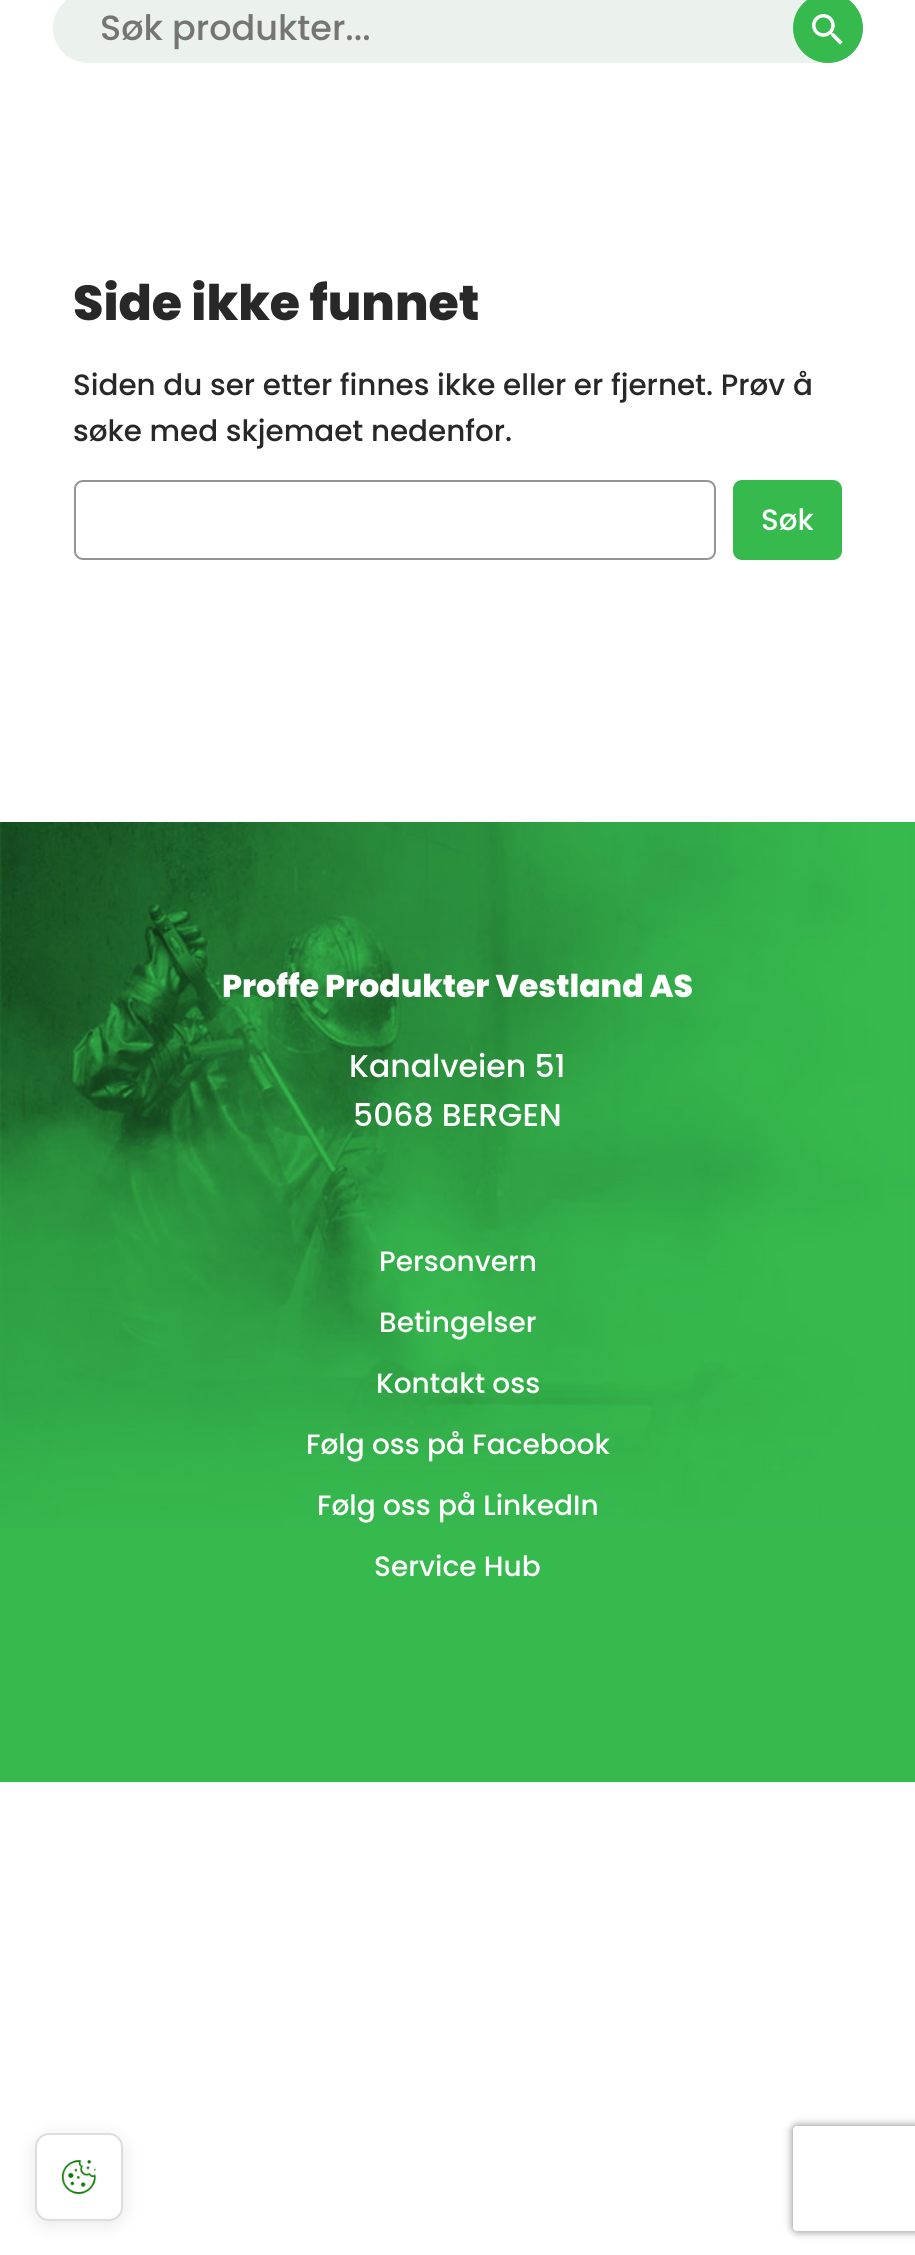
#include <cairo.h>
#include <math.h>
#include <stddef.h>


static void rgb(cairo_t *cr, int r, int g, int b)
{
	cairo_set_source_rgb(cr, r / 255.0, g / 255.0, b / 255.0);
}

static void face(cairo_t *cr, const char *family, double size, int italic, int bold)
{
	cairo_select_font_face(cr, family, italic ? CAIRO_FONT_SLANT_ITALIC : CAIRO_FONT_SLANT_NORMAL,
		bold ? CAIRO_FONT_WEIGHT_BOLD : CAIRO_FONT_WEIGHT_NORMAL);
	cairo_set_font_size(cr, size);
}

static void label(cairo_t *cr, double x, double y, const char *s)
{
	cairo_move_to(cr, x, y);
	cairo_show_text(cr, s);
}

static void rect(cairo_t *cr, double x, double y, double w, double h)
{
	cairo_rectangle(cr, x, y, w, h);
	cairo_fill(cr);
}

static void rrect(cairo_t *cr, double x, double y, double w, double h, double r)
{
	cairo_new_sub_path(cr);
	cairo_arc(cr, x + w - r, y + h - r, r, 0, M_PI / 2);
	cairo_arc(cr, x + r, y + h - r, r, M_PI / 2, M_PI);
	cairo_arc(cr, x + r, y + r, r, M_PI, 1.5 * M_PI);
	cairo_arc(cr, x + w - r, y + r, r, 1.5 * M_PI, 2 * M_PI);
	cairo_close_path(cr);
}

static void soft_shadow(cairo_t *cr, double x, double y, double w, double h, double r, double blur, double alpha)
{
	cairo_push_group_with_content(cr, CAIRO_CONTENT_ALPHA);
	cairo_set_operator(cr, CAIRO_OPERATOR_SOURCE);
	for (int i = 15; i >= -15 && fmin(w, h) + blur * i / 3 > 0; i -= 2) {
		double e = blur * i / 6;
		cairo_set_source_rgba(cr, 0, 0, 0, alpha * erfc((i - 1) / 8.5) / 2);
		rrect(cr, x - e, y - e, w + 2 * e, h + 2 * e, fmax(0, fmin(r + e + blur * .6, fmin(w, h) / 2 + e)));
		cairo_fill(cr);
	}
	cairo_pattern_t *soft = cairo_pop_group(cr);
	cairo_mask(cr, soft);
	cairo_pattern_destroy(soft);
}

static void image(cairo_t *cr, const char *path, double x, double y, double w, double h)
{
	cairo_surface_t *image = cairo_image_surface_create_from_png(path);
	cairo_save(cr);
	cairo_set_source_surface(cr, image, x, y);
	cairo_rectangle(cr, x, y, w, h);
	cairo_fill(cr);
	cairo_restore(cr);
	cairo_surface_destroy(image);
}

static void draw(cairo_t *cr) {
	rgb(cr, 255, 255, 255);
	cairo_paint(cr);
	rgb(cr, 235, 242, 237);
	rrect(cr, 55, -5, 806, 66, 33);
	cairo_fill_preserve(cr);
	cairo_set_line_width(cr, 4);
	cairo_stroke(cr);
	face(cr, "Poppins Medium", 35, 0, 0);
	rgb(cr, 117, 117, 117);
	label(cr, 100, 40, "Søk produkter...");
	rgb(cr, 54, 186, 78);
	cairo_new_path(cr);
	cairo_arc(cr, 828, 28, 33, 0, 2 * M_PI);
	cairo_fill_preserve(cr);
	cairo_stroke(cr);
	image(cr, "image0.png", 812, 14, 31, 31);
	face(cr, "Poppins ExtraBold", 49, 0, 0);
	rgb(cr, 40, 40, 40);
	label(cr, 73, 320, "Side ikke funnet");
	face(cr, "Poppins Medium", 29.4, 0, 0);
	label(cr, 73, 395, "Siden du ser etter finnes ikke eller er fjernet. Prøv å");
	label(cr, 73, 441, "søke med skjemaet nedenfor.");
	rrect(cr, 75, 481, 640, 78, 8);
	rgb(cr, 148, 148, 148);
	cairo_set_line_width(cr, 2);
	cairo_stroke(cr);
	rgb(cr, 54, 186, 78);
	rrect(cr, 733, 480, 109, 80, 9);
	cairo_fill(cr);
	rgb(cr, 255, 255, 255);
	label(cr, 761, 530, "Søk");
	rgb(cr, 54, 186, 78);
	rect(cr, 0, 1528, 915, 254);
	image(cr, "image1.png", 0, 822, 915, 706);
	face(cr, "Poppins ExtraBold", 31.5, 0, 0);
	rgb(cr, 255, 255, 255);
	label(cr, 222, 997, "Proffe Produkter Vestland AS");
	face(cr, "Poppins Medium", 31.5, 0, 0);
	label(cr, 349, 1077, "Kanalveien 51");
	label(cr, 353, 1126, "5068 BERGEN");
	face(cr, "Poppins Medium", 28, 0, 0);
	label(cr, 379, 1271, "Personvern");
	label(cr, 379, 1332, "Betingelser");
	label(cr, 376, 1393, "Kontakt oss");
	label(cr, 306, 1454, "Følg oss på Facebook");
	label(cr, 317, 1515, "Følg oss på LinkedIn");
	label(cr, 374, 1576, "Service Hub");
	rgb(cr, 0, 0, 0);
	soft_shadow(cr, 35, 2137, 88, 87, 14, 9, 0.1);
	rgb(cr, 255, 255, 255);
	rrect(cr, 36, 2134, 86, 86, 13);
	cairo_fill_preserve(cr);
	rgb(cr, 221, 221, 221);
	cairo_stroke(cr);
	image(cr, "image2.png", 62, 2160, 34, 34);
	cairo_save(cr);
	cairo_set_fill_rule(cr, CAIRO_FILL_RULE_EVEN_ODD);
	cairo_new_path(cr);
	cairo_move_to(cr, 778, 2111);
	cairo_line_to(cr, 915, 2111);
	cairo_line_to(cr, 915, 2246);
	cairo_line_to(cr, 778, 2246);
	cairo_close_path(cr);
	cairo_move_to(cr, 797, 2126);
	cairo_line_to(cr, 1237, 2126);
	cairo_curve_to(cr, 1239, 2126, 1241, 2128, 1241, 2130);
	cairo_line_to(cr, 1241, 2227);
	cairo_curve_to(cr, 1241, 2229, 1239, 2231, 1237, 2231);
	cairo_line_to(cr, 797, 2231);
	cairo_curve_to(cr, 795, 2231, 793, 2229, 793, 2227);
	cairo_line_to(cr, 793, 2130);
	cairo_curve_to(cr, 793, 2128, 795, 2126, 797, 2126);
	cairo_close_path(cr);
	cairo_clip(cr);
	rgb(cr, 128, 128, 128);
	soft_shadow(cr, 793, 2126, 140, 105, 4, 4.5, 1);
	cairo_restore(cr);
}

int main(void) {
	cairo_surface_t *surface = cairo_image_surface_create(CAIRO_FORMAT_RGB24, 915, 2255);
	cairo_t *cr = cairo_create(surface);
	cairo_font_options_t *options = cairo_font_options_create();
	cairo_font_options_set_hint_metrics(options, CAIRO_HINT_METRICS_OFF);
	cairo_font_options_set_hint_style(options, CAIRO_HINT_STYLE_NONE);
	cairo_set_font_options(cr, options);
	cairo_set_miter_limit(cr, 4);
	draw(cr);
	cairo_surface_write_to_png(surface, "render.png");
	cairo_font_options_destroy(options);
	cairo_destroy(cr);
	cairo_surface_destroy(surface);
	return 0;
}
